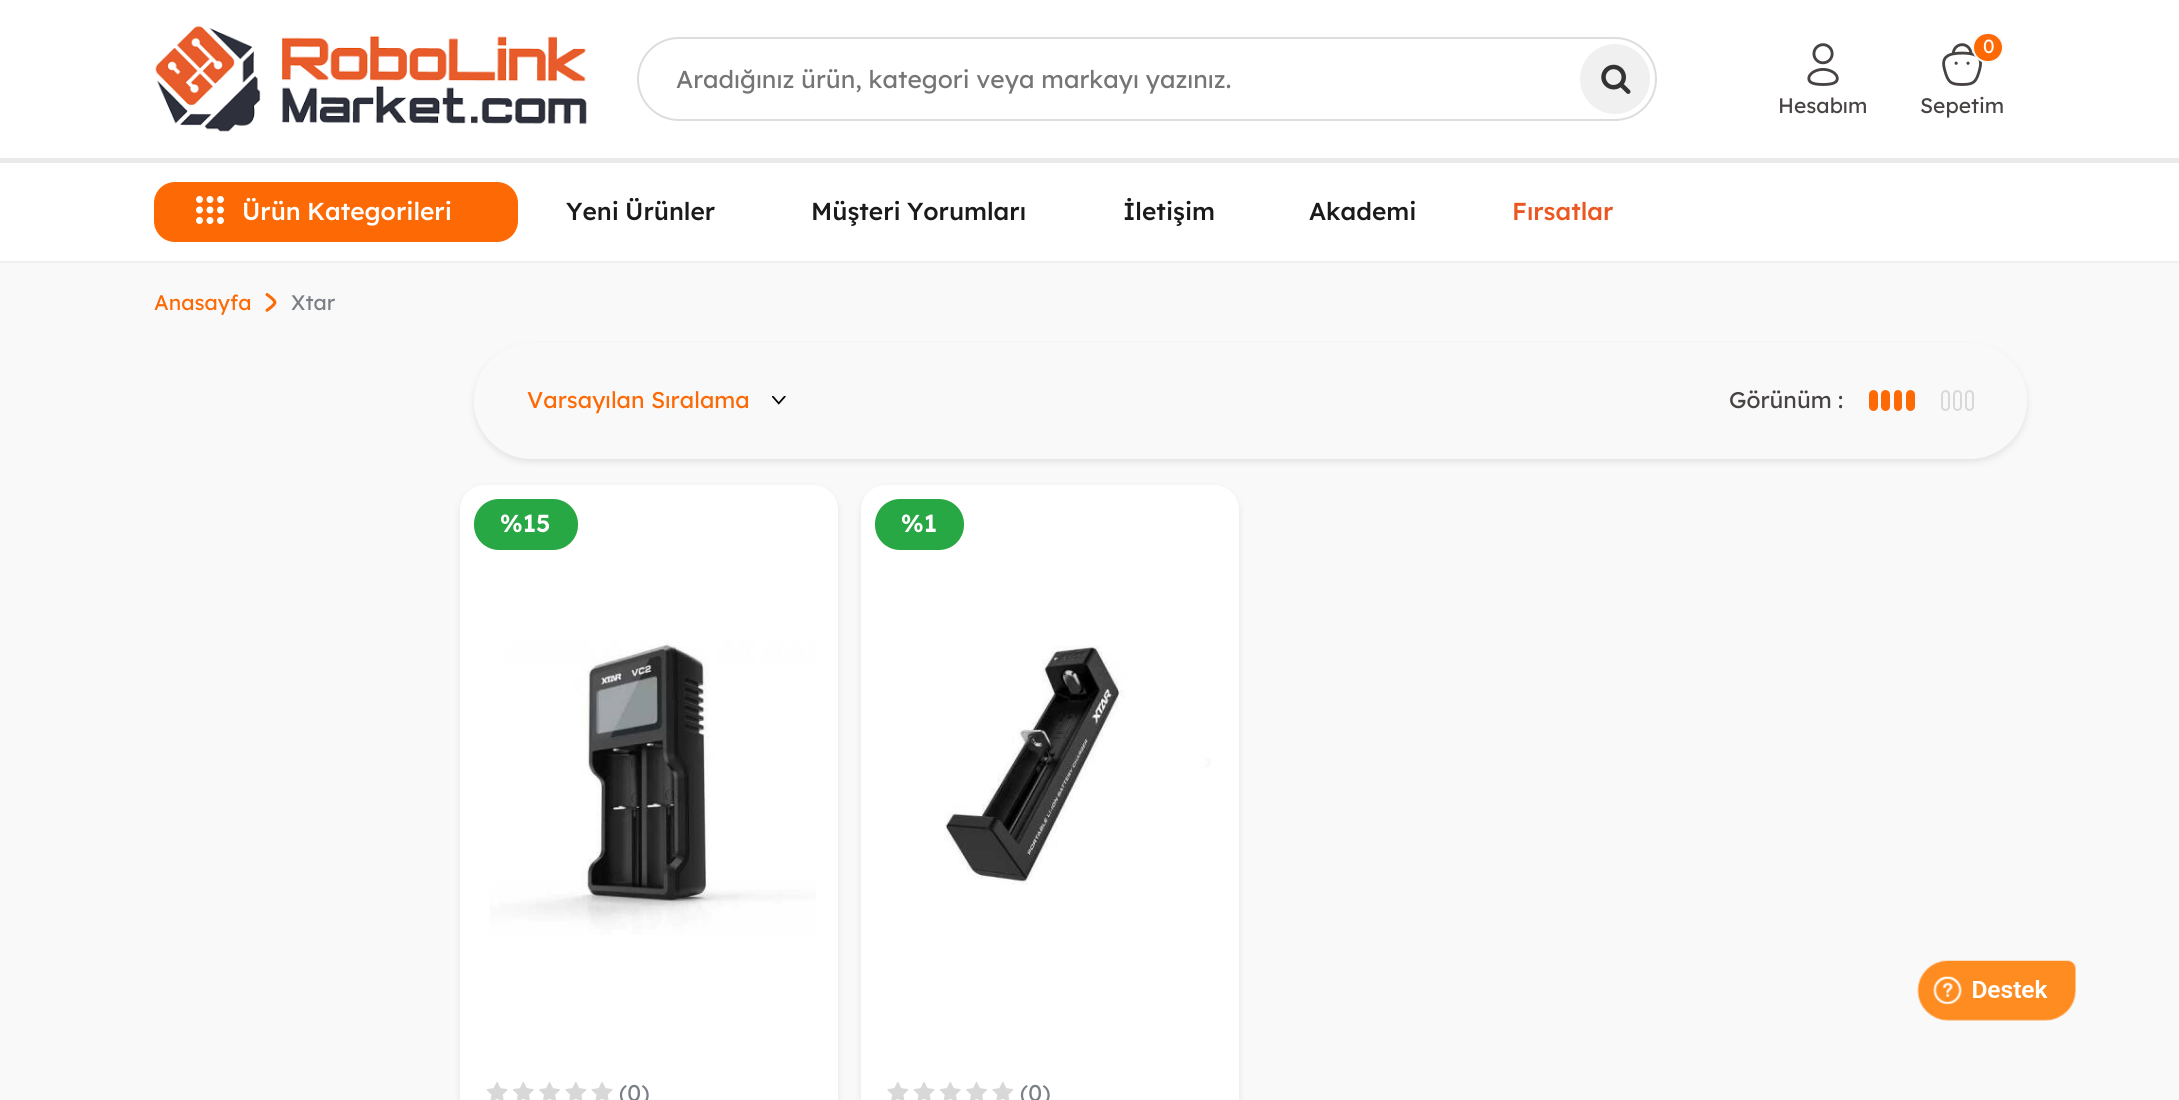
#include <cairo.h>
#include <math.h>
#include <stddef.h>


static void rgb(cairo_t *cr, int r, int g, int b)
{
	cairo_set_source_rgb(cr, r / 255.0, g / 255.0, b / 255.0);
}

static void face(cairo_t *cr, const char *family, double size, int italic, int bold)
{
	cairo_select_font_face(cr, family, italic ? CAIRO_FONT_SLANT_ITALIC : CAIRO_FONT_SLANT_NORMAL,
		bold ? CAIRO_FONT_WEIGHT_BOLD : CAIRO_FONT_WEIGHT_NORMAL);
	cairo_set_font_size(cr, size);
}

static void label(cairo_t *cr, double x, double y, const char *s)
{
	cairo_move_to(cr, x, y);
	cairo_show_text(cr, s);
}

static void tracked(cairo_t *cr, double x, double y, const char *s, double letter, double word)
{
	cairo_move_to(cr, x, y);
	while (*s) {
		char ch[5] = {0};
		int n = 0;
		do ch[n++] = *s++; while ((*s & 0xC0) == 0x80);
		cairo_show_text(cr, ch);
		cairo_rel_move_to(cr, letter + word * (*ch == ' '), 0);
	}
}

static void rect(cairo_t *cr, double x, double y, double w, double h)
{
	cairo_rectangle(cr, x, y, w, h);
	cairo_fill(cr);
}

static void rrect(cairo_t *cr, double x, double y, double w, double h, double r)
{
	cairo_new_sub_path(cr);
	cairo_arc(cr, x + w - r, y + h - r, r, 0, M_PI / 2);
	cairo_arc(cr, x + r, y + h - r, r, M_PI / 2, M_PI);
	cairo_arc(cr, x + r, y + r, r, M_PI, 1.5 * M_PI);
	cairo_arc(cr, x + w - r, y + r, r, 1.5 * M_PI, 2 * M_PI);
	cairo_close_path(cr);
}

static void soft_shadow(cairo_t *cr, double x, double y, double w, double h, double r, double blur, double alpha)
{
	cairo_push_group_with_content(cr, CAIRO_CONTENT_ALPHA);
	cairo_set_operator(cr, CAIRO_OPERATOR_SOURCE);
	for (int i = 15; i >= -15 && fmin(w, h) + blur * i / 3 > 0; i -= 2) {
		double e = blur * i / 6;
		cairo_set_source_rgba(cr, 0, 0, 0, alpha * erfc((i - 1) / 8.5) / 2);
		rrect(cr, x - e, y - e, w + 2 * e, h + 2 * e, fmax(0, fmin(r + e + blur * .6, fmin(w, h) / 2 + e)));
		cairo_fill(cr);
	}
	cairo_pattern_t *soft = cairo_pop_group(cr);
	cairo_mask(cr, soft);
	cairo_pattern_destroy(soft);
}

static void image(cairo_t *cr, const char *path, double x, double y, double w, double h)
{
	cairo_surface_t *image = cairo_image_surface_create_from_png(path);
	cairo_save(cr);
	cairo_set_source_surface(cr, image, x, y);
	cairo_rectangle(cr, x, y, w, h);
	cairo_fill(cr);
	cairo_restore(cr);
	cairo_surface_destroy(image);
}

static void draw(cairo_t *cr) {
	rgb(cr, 249, 249, 249);
	cairo_paint(cr);
	rgb(cr, 255, 255, 255);
	rect(cr, 0, 0, 2179, 158);
	rgb(cr, 234, 234, 234);
	rect(cr, 0, 158, 2179, 5);
	image(cr, "image0.png", 155, 26, 432, 106);
	rrect(cr, 638, 38, 1018, 82, 41);
	rgb(cr, 221, 221, 221);
	cairo_stroke(cr);
	face(cr, "Lexend", 24.5, 0, 0);
	rgb(cr, 117, 117, 117);
	label(cr, 676, 88, "Aradığınız ürün, kategori veya markayı yazınız.");
	rgb(cr, 240, 240, 240);
	cairo_new_path(cr);
	cairo_arc(cr, 1615, 79, 35, 0, 2 * M_PI);
	cairo_fill(cr);
	image(cr, "image1.png", 1601, 64, 30, 30);
	image(cr, "image2.png", 1807, 43, 32, 43);
	face(cr, "Lexend", 21, 0, 0);
	rgb(cr, 72, 67, 67);
	label(cr, 1778, 113, "Hesabım");
	image(cr, "image3.png", 1942, 43, 40, 43);
	rgb(cr, 253, 105, 5);
	rrect(cr, 1973, 33, 30, 29, 14.5);
	cairo_fill_preserve(cr);
	rgb(cr, 249, 249, 249);
	cairo_stroke(cr);
	face(cr, "Lexend", 19, 0, 0);
	rgb(cr, 255, 255, 255);
	label(cr, 1983, 53, "0");
	face(cr, "Lexend", 21, 0, 0);
	rgb(cr, 72, 67, 67);
	label(cr, 1920, 113, "Sepetim");
	rgb(cr, 255, 255, 255);
	rect(cr, 0, 163, 2179, 98);
	rgb(cr, 240, 240, 240);
	rect(cr, 0, 261, 2179, 2);
	rgb(cr, 253, 105, 5);
	rrect(cr, 154, 182, 364, 60, 21);
	cairo_fill(cr);
	image(cr, "image4.png", 196, 196, 28, 28);
	face(cr, "Lexend Medium", 24.5, 0, 0);
	rgb(cr, 255, 255, 255);
	tracked(cr, 242, 220, "Ürün Kategorileri", 0, -1);
	rgb(cr, 26, 26, 26);
	tracked(cr, 566, 220, "Yeni Ürünler", 0, -1);
	tracked(cr, 811, 220, "Müşteri Yorumları", 0, -1);
	label(cr, 1123, 220, "İletişim");
	label(cr, 1309, 220, "Akademi");
	rgb(cr, 236, 87, 33);
	label(cr, 1512, 220, "Fırsatlar");
	face(cr, "Lexend", 21, 0, 0);
	rgb(cr, 253, 105, 5);
	label(cr, 154, 310, "Anasayfa");
	image(cr, "image5.png", 265, 293, 12, 19);
	rgb(cr, 122, 127, 134);
	label(cr, 291, 310, "Xtar");
	cairo_save(cr);
	cairo_set_fill_rule(cr, CAIRO_FILL_RULE_EVEN_ODD);
	cairo_new_path(cr);
	cairo_move_to(cr, 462, 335);
	cairo_line_to(cr, 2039, 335);
	cairo_line_to(cr, 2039, 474);
	cairo_line_to(cr, 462, 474);
	cairo_close_path(cr);
	cairo_move_to(cr, 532, 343);
	cairo_line_to(cr, 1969, 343);
	cairo_curve_to(cr, 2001, 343, 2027, 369, 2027, 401);
	cairo_curve_to(cr, 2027, 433, 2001, 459, 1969, 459);
	cairo_line_to(cr, 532, 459);
	cairo_curve_to(cr, 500, 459, 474, 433, 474, 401);
	cairo_curve_to(cr, 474, 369, 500, 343, 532, 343);
	cairo_close_path(cr);
	cairo_clip(cr);
	rgb(cr, 0, 0, 0);
	soft_shadow(cr, 474, 347, 1553, 115, 57.5, 3.5, 0.09);
	cairo_restore(cr);
	image(cr, "image6.png", 772, 396, 14, 9);
	face(cr, "Lexend", 22.75, 0, 0);
	rgb(cr, 253, 105, 5);
	label(cr, 527, 408, "Varsayılan Sıralama");
	rgb(cr, 72, 67, 67);
	label(cr, 1729, 408, "Görünüm :");
	rgb(cr, 253, 105, 5);
	rrect(cr, 1870, 391, 7, 19, 3.5);
	cairo_fill_preserve(cr);
	cairo_stroke(cr);
	rrect(cr, 1882, 391, 7, 19, 3.5);
	cairo_fill_preserve(cr);
	cairo_stroke(cr);
	rrect(cr, 1895, 391, 6, 19, 3);
	cairo_fill_preserve(cr);
	cairo_stroke(cr);
	rrect(cr, 1907, 391, 7, 19, 3.5);
	cairo_fill_preserve(cr);
	cairo_stroke(cr);
	rrect(cr, 1942, 391, 7, 19, 3.5);
	rgb(cr, 216, 216, 216);
	cairo_stroke(cr);
	rrect(cr, 1954, 391, 7, 19, 3.5);
	cairo_stroke(cr);
	rrect(cr, 1966, 391, 7, 19, 3.5);
	cairo_stroke(cr);
	rgb(cr, 0, 0, 0);
	soft_shadow(cr, 460, 488, 378, 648, 25, 3.5, 0.09);
	rgb(cr, 255, 255, 255);
	rrect(cr, 460, 485, 378, 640, 25);
	cairo_fill(cr);
	rgb(cr, 40, 167, 69);
	rrect(cr, 474, 499, 104, 51, 25);
	cairo_fill(cr);
	face(cr, "Lexend SemiBold", 24.5, 0, 0);
	rgb(cr, 255, 255, 255);
	label(cr, 500, 532, "%15");
	image(cr, "image7.png", 490, 640, 326, 295);
	image(cr, "image8.png", 486, 1082, 22, 18);
	image(cr, "image9.png", 512, 1082, 22, 18);
	image(cr, "image10.png", 539, 1082, 21, 18);
	image(cr, "image11.png", 565, 1082, 22, 18);
	image(cr, "image8.png", 591, 1082, 22, 18);
	face(cr, "Lexend", 22.75, 0, 0);
	rgb(cr, 122, 127, 134);
	label(cr, 619, 1101, "(0)");
	rgb(cr, 0, 0, 0);
	soft_shadow(cr, 861, 488, 378, 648, 25, 3.5, 0.09);
	rgb(cr, 255, 255, 255);
	rrect(cr, 861, 485, 378, 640, 25);
	cairo_fill(cr);
	rgb(cr, 40, 167, 69);
	rrect(cr, 875, 499, 89, 51, 25);
	cairo_fill(cr);
	face(cr, "Lexend SemiBold", 24.5, 0, 0);
	rgb(cr, 255, 255, 255);
	label(cr, 901, 532, "%1");
	image(cr, "image12.png", 944, 645, 267, 240);
	image(cr, "image11.png", 887, 1082, 22, 18);
	image(cr, "image8.png", 913, 1082, 22, 18);
	image(cr, "image9.png", 939, 1082, 22, 18);
	image(cr, "image10.png", 966, 1082, 21, 18);
	image(cr, "image11.png", 992, 1082, 22, 18);
	face(cr, "Lexend", 22.75, 0, 0);
	rgb(cr, 122, 127, 134);
	label(cr, 1020, 1101, "(0)");
	image(cr, "image13.png", 1917, 960, 159, 61);
}

int main(void) {
	cairo_surface_t *surface = cairo_image_surface_create(CAIRO_FORMAT_RGB24, 2179, 1100);
	cairo_t *cr = cairo_create(surface);
	cairo_font_options_t *options = cairo_font_options_create();
	cairo_font_options_set_hint_metrics(options, CAIRO_HINT_METRICS_OFF);
	cairo_font_options_set_hint_style(options, CAIRO_HINT_STYLE_NONE);
	cairo_set_font_options(cr, options);
	cairo_set_miter_limit(cr, 4);
	draw(cr);
	cairo_surface_write_to_png(surface, "render.png");
	cairo_font_options_destroy(options);
	cairo_destroy(cr);
	cairo_surface_destroy(surface);
	return 0;
}
